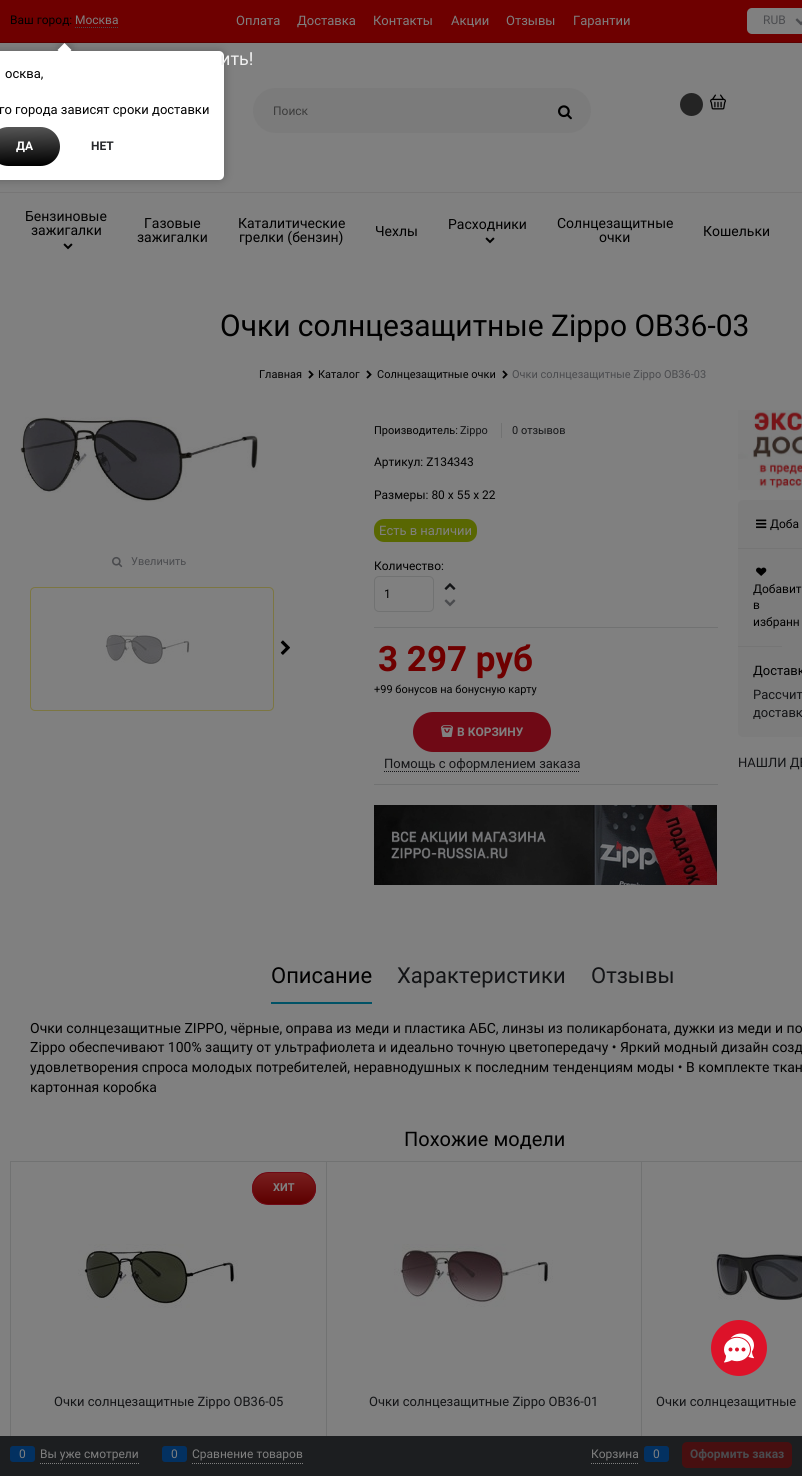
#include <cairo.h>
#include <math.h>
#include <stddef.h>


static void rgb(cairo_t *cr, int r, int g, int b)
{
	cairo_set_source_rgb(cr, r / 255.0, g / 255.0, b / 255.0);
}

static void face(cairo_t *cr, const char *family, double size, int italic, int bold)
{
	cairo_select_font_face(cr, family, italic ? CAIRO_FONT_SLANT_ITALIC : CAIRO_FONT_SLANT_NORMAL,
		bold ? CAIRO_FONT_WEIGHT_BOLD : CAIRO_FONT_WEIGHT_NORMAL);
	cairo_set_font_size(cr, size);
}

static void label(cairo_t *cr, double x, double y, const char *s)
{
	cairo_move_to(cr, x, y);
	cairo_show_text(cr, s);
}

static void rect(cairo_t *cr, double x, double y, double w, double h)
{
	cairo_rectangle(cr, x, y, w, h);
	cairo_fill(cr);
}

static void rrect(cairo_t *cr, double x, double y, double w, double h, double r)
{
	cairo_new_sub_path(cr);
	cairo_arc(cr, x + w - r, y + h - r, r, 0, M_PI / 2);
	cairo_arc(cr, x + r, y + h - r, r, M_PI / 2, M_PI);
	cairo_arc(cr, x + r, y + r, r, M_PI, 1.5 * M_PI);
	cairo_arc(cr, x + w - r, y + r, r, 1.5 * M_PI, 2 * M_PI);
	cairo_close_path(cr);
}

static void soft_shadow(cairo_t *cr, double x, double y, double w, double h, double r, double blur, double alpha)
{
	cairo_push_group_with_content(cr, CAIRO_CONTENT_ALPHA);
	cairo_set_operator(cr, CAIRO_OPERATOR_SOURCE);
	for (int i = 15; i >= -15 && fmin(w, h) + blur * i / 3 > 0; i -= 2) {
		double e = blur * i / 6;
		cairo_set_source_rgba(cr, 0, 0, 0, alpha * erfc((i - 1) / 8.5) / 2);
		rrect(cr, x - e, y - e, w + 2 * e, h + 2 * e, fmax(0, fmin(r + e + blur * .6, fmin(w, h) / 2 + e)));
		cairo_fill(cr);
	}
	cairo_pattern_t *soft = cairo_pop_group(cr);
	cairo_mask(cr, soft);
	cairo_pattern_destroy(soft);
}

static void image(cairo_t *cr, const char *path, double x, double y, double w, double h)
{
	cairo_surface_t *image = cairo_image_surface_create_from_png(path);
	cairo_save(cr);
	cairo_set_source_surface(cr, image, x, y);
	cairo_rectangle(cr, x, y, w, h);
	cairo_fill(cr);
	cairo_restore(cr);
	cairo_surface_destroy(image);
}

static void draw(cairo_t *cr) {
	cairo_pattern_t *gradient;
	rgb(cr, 128, 128, 128);
	cairo_paint(cr);
	rgb(cr, 119, 118, 118);
	rect(cr, 0, 192, 802, 1);
	rgb(cr, 110, 0, 0);
	rect(cr, 0, 0, 802, 42);
	rgb(cr, 92, 0, 0);
	rect(cr, 0, 42, 802, 1);
	face(cr, "Roboto", 12, 0, 0);
	rgb(cr, 0, 0, 0);
	label(cr, 10, 24, "Ваш город:");
	rgb(cr, 128, 128, 128);
	label(cr, 75, 24, "Москва");
	cairo_new_path(cr);
	cairo_move_to(cr, 75, 27.5);
	cairo_line_to(cr, 119, 27.5);
	rgb(cr, 74, 75, 78);
	cairo_set_line_width(cr, 1);
	cairo_set_dash(cr, (double[]){1, 1}, 2, 0);
	cairo_stroke(cr);
	face(cr, "Roboto", 13, 0, 0);
	rgb(cr, 128, 128, 128);
	label(cr, 236, 25, "Оплата");
	label(cr, 297, 25, "Доставка");
	label(cr, 373, 25, "Контакты");
	label(cr, 451, 25, "Акции");
	label(cr, 506, 25, "Отзывы");
	label(cr, 573, 25, "Гарантии");
	rrect(cr, 747, 8, 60, 26, 5);
	cairo_fill(cr);
	face(cr, "Roboto", 12, 0, 0);
	rgb(cr, 74, 75, 78);
	label(cr, 763, 24, "RUB");
	image(cr, "image0.png", 795, 18, 7, 8);
	rgb(cr, 123, 123, 123);
	rrect(cr, 253, 88, 338, 45, 22.5);
	cairo_fill(cr);
	rgb(cr, 59, 59, 59);
	label(cr, 273, 115, "Поиск");
	image(cr, "image1.png", 558, 105, 14, 15);
	rgb(cr, 36, 36, 36);
	cairo_arc(cr, 691.5, 104.5, 11.5, 0, 2 * M_PI);
	cairo_fill(cr);
	image(cr, "image2.png", 710, 94, 16, 16);
	face(cr, "Roboto", 14, 0, 0);
	rgb(cr, 0, 0, 0);
	label(cr, 25, 221, "Бензиновые");
	label(cr, 31, 235, "зажигалки");
	image(cr, "image3.png", 63, 243, 10, 7);
	label(cr, 144, 228, "Газовые");
	label(cr, 137, 242, "зажигалки");
	label(cr, 238, 228, "Каталитические");
	label(cr, 239, 242, "грелки (бензин)");
	label(cr, 375, 236, "Чехлы");
	label(cr, 448, 229, "Расходники");
	image(cr, "image3.png", 485, 237, 10, 7);
	label(cr, 557, 228, "Солнцезащитные");
	label(cr, 599, 242, "очки");
	label(cr, 703, 236, "Кошельки");
	face(cr, "Roboto", 30, 0, 0);
	label(cr, 220, 336, "Очки солнцезащитные Zippo OB36-03");
	face(cr, "Roboto", 11, 0, 0);
	label(cr, 259, 378, "Главная");
	image(cr, "image4.png", 308, 370, 6, 9);
	label(cr, 318, 378, "Каталог");
	image(cr, "image4.png", 366, 370, 6, 9);
	label(cr, 377, 378, "Солнцезащитные очки");
	image(cr, "image4.png", 502, 370, 6, 9);
	rgb(cr, 74, 75, 78);
	label(cr, 512, 378, "Очки солнцезащитные Zippo OB36-03");
	image(cr, "image5.png", 20, 417, 238, 85);
	image(cr, "image6.png", 112, 556, 11, 12);
	label(cr, 131, 565, "Увеличить");
	rrect(cr, 30.5, 587.5, 243, 123, 4.5);
	rgb(cr, 124, 118, 66);
	cairo_set_dash(cr, NULL, 0, 0);
	cairo_stroke(cr);
	image(cr, "image7.png", 105, 632, 85, 32);
	image(cr, "image8.png", 280, 640, 10, 15);
	rgb(cr, 0, 0, 0);
	label(cr, 374, 434, "Производитель:");
	rgb(cr, 19, 20, 22);
	label(cr, 460, 434, "Zippo");
	rgb(cr, 113, 114, 114);
	rect(cr, 501, 423, 1, 15);
	rgb(cr, 19, 20, 22);
	label(cr, 512, 434, "0 отзывов");
	face(cr, "Roboto", 12, 0, 0);
	rgb(cr, 0, 0, 0);
	label(cr, 374, 466, "Артикул: Z134343");
	label(cr, 374, 499, "Размеры: 80 x 55 x 22");
	rgb(cr, 89, 103, 2);
	rrect(cr, 374, 519, 103, 23, 10);
	cairo_fill(cr);
	face(cr, "Roboto", 13, 0, 0);
	rgb(cr, 128, 128, 128);
	label(cr, 379, 535, "Есть в наличии");
	face(cr, "Roboto", 12, 0, 0);
	rgb(cr, 0, 0, 0);
	label(cr, 374, 570, "Количество:");
	rrect(cr, 374.5, 576.5, 59, 35, 4.5);
	rgb(cr, 113, 114, 114);
	cairo_stroke(cr);
	rgb(cr, 0, 0, 0);
	label(cr, 384, 598, "1");
	image(cr, "image9.png", 444, 583, 12, 7);
	image(cr, "image10.png", 444, 599, 12, 8);
	rgb(cr, 113, 114, 114);
	rect(cr, 374, 627, 344, 1);
	rect(cr, 374, 784, 344, 1);
	face(cr, "Roboto", 35, 0, 1);
	rgb(cr, 110, 0, 0);
	label(cr, 378, 671, "3 297 руб");
	face(cr, "Roboto", 11, 0, 0);
	rgb(cr, 0, 0, 0);
	label(cr, 374, 693, "+99 бонусов на бонусную карту");
	rgb(cr, 111, 9, 21);
	rrect(cr, 413, 712, 138, 40, 20);
	cairo_fill(cr);
	image(cr, "image11.png", 441, 725, 12, 12);
	face(cr, "Roboto", 12, 0, 1);
	rgb(cr, 128, 128, 128);
	label(cr, 457, 736, "В КОРЗИНУ");
	face(cr, "Roboto", 13, 0, 0);
	rgb(cr, 19, 20, 22);
	label(cr, 384, 768, "Помощь с оформлением заказа");
	cairo_new_path(cr);
	cairo_move_to(cr, 384, 771.5);
	cairo_line_to(cr, 580, 771.5);
	cairo_set_dash(cr, (double[]){1, 1}, 2, 0);
	cairo_stroke(cr);
	image(cr, "image12.png", 374, 805, 343, 80);
	image(cr, "image13.png", 738, 410, 64, 80);
	rgb(cr, 124, 124, 124);
	rrect(cr, 738, 500, 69, 237, 5);
	cairo_fill(cr);
	rgb(cr, 117, 117, 117);
	rect(cr, 738, 548, 64, 1);
	image(cr, "image14.png", 756, 519, 11, 10);
	face(cr, "Roboto", 12, 0, 0);
	rgb(cr, 0, 0, 0);
	label(cr, 770, 528, "Доба");
	rgb(cr, 117, 117, 117);
	rect(cr, 738, 646, 44, 1);
	image(cr, "image15.png", 756, 567, 11, 9);
	rgb(cr, 0, 0, 0);
	label(cr, 753, 593, "Добавит");
	label(cr, 753, 609, "в");
	label(cr, 753, 626, "избранн");
	face(cr, "Roboto", 13, 0, 0);
	label(cr, 753, 675, "Доставк");
	rgb(cr, 19, 20, 22);
	label(cr, 753, 699, "Рассчит");
	label(cr, 753, 717, "доставк");
	label(cr, 738, 767, "НАШЛИ ДЕ");
	rgb(cr, 0, 82, 102);
	rect(cr, 271, 1002, 101, 2);
	face(cr, "Roboto", 22, 0, 0);
	rgb(cr, 0, 0, 0);
	label(cr, 271, 983, "Описание");
	rgb(cr, 19, 20, 22);
	label(cr, 397, 983, "Характеристики");
	label(cr, 591, 983, "Отзывы");
	face(cr, "Roboto", 14, 0, 0);
	rgb(cr, 0, 0, 0);
	label(cr, 30, 1033, "Очки солнцезащитные ZIPPO, чёрные, оправа из меди и пластика АБС, линзы из поликарбоната, дужки из меди и по");
	label(cr, 30, 1052, "Zippo обеспечивают 100% защиту от ультрафиолета и идеально точную цветопередачу • Яркий модный дизайн созд");
	label(cr, 30, 1072, "удовлетворения спроса молодых потребителей, неравнодушных к последним тенденциям моды • В комплекте ткан");
	label(cr, 30, 1092, "картонная коробка");
	face(cr, "Roboto", 20, 0, 0);
	label(cr, 404, 1146, "Похожие модели");
	cairo_rectangle(cr, 10.5, 1161.5, 316, 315);
	rgb(cr, 113, 114, 114);
	cairo_set_dash(cr, NULL, 0, 0);
	cairo_stroke(cr);
	cairo_save(cr);
	rrect(cr, 252, 1172, 64, 33, 16.5);
	cairo_clip(cr);
	gradient = cairo_pattern_create_linear(284, 1173, 284, 1204);
	cairo_pattern_add_color_stop_rgba(gradient, 0, 0.471, 0.118, 0.118, 1);
	cairo_pattern_add_color_stop_rgba(gradient, 1, 0.361, 0, 0, 1);
	cairo_set_source(cr, gradient);
	cairo_pattern_destroy(gradient);
	rect(cr, 252, 1173, 64, 31);
	cairo_restore(cr);
	rrect(cr, 252.5, 1172.5, 63, 32, 16);
	rgb(cr, 111, 9, 21);
	cairo_stroke(cr);
	face(cr, "Roboto", 11, 0, 1);
	rgb(cr, 128, 128, 128);
	label(cr, 273, 1191, "ХИТ");
	image(cr, "image16.png", 78, 1244, 160, 64);
	face(cr, "Roboto", 13, 0, 0);
	rgb(cr, 19, 20, 22);
	label(cr, 54, 1406, "Очки солнцезащитные Zippo OB36-05");
	cairo_rectangle(cr, 326.5, 1161.5, 315, 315);
	rgb(cr, 113, 114, 114);
	cairo_stroke(cr);
	image(cr, "image17.png", 394, 1244, 159, 63);
	rgb(cr, 19, 20, 22);
	label(cr, 369, 1406, "Очки солнцезащитные Zippo OB36-01");
	cairo_rectangle(cr, 641.5, 1161.5, 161, 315);
	rgb(cr, 113, 114, 114);
	cairo_stroke(cr);
	image(cr, "image18.png", 711, 1252, 91, 48);
	rgb(cr, 19, 20, 22);
	label(cr, 656, 1406, "Очки солнцезащитные");
	rgb(cr, 28, 30, 32);
	rect(cr, 0, 1436, 802, 40);
	cairo_new_path(cr);
	cairo_move_to(cr, 40, 1463.5);
	cairo_line_to(cr, 139, 1463.5);
	rgb(cr, 128, 128, 128);
	cairo_set_dash(cr, (double[]){1, 1}, 2, 0);
	cairo_stroke(cr);
	rgb(cr, 3, 49, 97);
	rrect(cr, 10, 1446, 25, 16, 3);
	cairo_fill(cr);
	face(cr, "Roboto", 12, 0, 0);
	rgb(cr, 128, 128, 128);
	label(cr, 19, 1458, "0");
	label(cr, 40, 1458, "Вы уже смотрели");
	cairo_new_path(cr);
	cairo_move_to(cr, 192, 1463.5);
	cairo_line_to(cr, 303, 1463.5);
	cairo_stroke(cr);
	rgb(cr, 3, 49, 97);
	rrect(cr, 162, 1446, 25, 16, 3);
	cairo_fill(cr);
	rgb(cr, 128, 128, 128);
	label(cr, 171, 1458, "0");
	label(cr, 192, 1458, "Сравнение товаров");
	cairo_new_path(cr);
	cairo_move_to(cr, 591, 1463.5);
	cairo_line_to(cr, 639, 1463.5);
	cairo_stroke(cr);
	label(cr, 591, 1458, "Корзина");
	rgb(cr, 3, 49, 97);
	rrect(cr, 644, 1446, 25, 16, 3);
	cairo_fill(cr);
	rgb(cr, 128, 128, 128);
	label(cr, 653, 1458, "0");
	rgb(cr, 71, 15, 16);
	rrect(cr, 682, 1442, 110, 26, 5);
	cairo_fill(cr);
	face(cr, "Roboto", 12, 0, 1);
	rgb(cr, 74, 75, 78);
	label(cr, 690, 1458, "Оформить заказ");
	rgb(cr, 0, 0, 0);
	soft_shadow(cr, -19, 51, 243, 129, 5, 4.5, 0.25);
	rgb(cr, 255, 255, 255);
	rrect(cr, -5, 51, 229, 129, 5);
	cairo_fill(cr);
	cairo_save(cr);
	cairo_rectangle(cr, 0, 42, 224, 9);
	cairo_clip(cr);
	rgb(cr, 0, 0, 0);
	soft_shadow(cr, 60, 45, 10, 10, 0, 4.5, 0.25);
	cairo_restore(cr);
	cairo_save(cr);
	cairo_rectangle(cr, 0, 42, 224, 9);
	cairo_clip(cr);
	cairo_new_path(cr);
	cairo_move_to(cr, 64.5, 43);
	cairo_line_to(cr, 71.5, 50);
	cairo_line_to(cr, 64.5, 57);
	cairo_line_to(cr, 57.5, 50);
	cairo_close_path(cr);
	cairo_fill(cr);
	cairo_restore(cr);
	face(cr, "Roboto", 18, 0, 0);
	rgb(cr, 240, 240, 240);
	label(cr, 220, 65, "ить!");
	face(cr, "Roboto", 13, 0, 0);
	rgb(cr, 0, 0, 0);
	label(cr, 5, 78, "осква,");
	label(cr, -1, 114, "го города зависят сроки доставки");
	gradient = cairo_pattern_create_linear(24, 127, 25, 166);
	cairo_pattern_add_color_stop_rgba(gradient, 0, 0.333, 0.333, 0.333, 1);
	cairo_pattern_add_color_stop_rgba(gradient, 1, 0, 0, 0, 1);
	cairo_set_source(cr, gradient);
	cairo_pattern_destroy(gradient);
	rrect(cr, -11, 127, 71, 39, 19.5);
	cairo_fill(cr);
	face(cr, "Roboto", 12, 0, 1);
	rgb(cr, 255, 255, 255);
	label(cr, 16, 150, "ДА");
	rgb(cr, 38, 40, 43);
	label(cr, 91, 150, "НЕТ");
	rgb(cr, 221, 18, 41);
	cairo_new_path(cr);
	cairo_arc(cr, 739, 1348, 28, 0, 2 * M_PI);
	cairo_fill(cr);
	image(cr, "image19.png", 724, 1333, 30, 30);
}

int main(void) {
	cairo_surface_t *surface = cairo_image_surface_create(CAIRO_FORMAT_RGB24, 802, 1476);
	cairo_t *cr = cairo_create(surface);
	cairo_font_options_t *options = cairo_font_options_create();
	cairo_font_options_set_hint_metrics(options, CAIRO_HINT_METRICS_OFF);
	cairo_font_options_set_hint_style(options, CAIRO_HINT_STYLE_NONE);
	cairo_set_font_options(cr, options);
	cairo_set_miter_limit(cr, 4);
	draw(cr);
	cairo_surface_write_to_png(surface, "render.png");
	cairo_font_options_destroy(options);
	cairo_destroy(cr);
	cairo_surface_destroy(surface);
	return 0;
}
